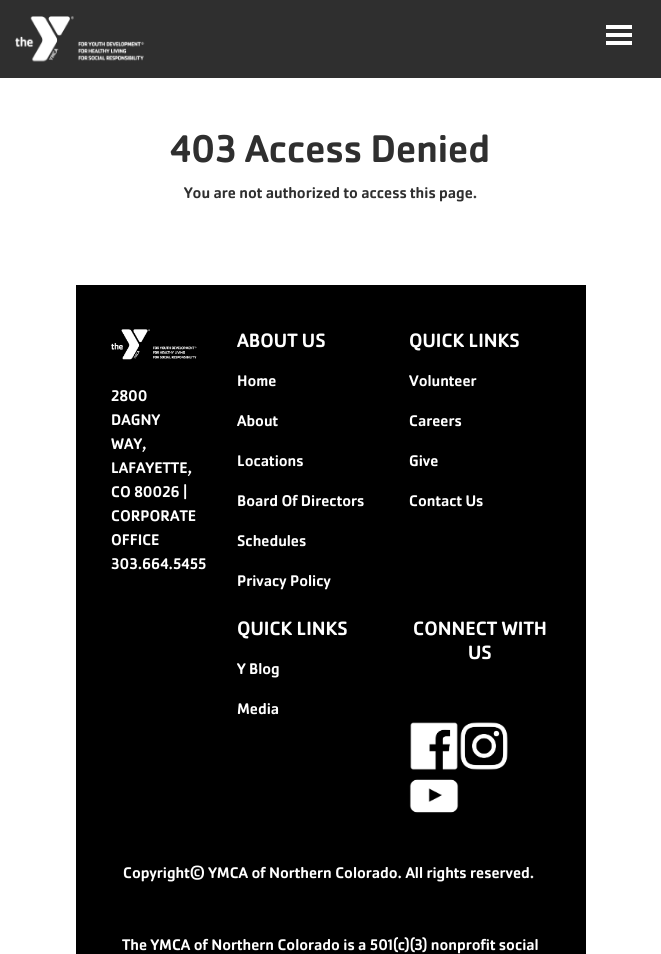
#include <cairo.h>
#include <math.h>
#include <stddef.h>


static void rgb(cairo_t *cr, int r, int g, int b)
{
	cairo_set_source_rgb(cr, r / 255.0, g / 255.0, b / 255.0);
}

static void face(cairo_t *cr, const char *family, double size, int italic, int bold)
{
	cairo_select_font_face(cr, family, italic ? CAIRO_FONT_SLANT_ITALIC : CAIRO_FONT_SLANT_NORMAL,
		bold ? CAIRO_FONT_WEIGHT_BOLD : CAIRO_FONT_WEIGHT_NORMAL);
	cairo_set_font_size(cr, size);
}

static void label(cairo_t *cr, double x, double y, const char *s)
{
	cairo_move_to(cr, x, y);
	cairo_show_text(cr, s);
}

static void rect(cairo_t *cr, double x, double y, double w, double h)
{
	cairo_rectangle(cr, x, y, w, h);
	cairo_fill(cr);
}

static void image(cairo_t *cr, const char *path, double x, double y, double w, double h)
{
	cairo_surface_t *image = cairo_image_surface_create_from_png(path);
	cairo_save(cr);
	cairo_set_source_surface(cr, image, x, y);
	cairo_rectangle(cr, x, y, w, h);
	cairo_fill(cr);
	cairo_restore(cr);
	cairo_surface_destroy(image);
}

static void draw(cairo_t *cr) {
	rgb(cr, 255, 255, 255);
	cairo_paint(cr);
	rgb(cr, 47, 47, 47);
	rect(cr, 0, 0, 661, 78);
	image(cr, "image0.png", 15, 16, 130, 46);
	cairo_new_path(cr);
	cairo_move_to(cr, 608, 27);
	cairo_line_to(cr, 630, 27);
	cairo_move_to(cr, 608, 35);
	cairo_line_to(cr, 630, 35);
	cairo_move_to(cr, 608, 43);
	cairo_line_to(cr, 630, 43);
	rgb(cr, 255, 255, 255);
	cairo_set_line_width(cr, 4);
	cairo_set_line_cap(cr, CAIRO_LINE_CAP_SQUARE);
	cairo_stroke(cr);
	face(cr, "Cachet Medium", 40, 0, 0);
	rgb(cr, 47, 47, 47);
	label(cr, 170, 162, "403 Access Denied");
	face(cr, "Cachet Medium", 16, 0, 0);
	label(cr, 184, 198, "You are not authorized to access this page.");
	rgb(cr, 0, 0, 0);
	rect(cr, 76, 285, 510, 669);
	image(cr, "image1.png", 111, 329, 86, 31);
	rgb(cr, 255, 255, 255);
	label(cr, 111, 401, "2800");
	label(cr, 111, 425, "DAGNY");
	label(cr, 111, 449, "WAY,");
	label(cr, 111, 473, "LAFAYETTE,");
	label(cr, 111, 497, "CO 80026 |");
	label(cr, 111, 521, "CORPORATE");
	label(cr, 111, 545, "OFFICE");
	label(cr, 111, 569, "303.664.5455");
	face(cr, "Cachet Medium", 20, 0, 0);
	label(cr, 237, 347, "ABOUT US");
	face(cr, "Cachet Medium", 16, 0, 0);
	label(cr, 237, 386, "Home");
	label(cr, 237, 426, "About");
	label(cr, 237, 466, "Locations");
	label(cr, 237, 506, "Board Of Directors");
	label(cr, 237, 546, "Schedules");
	label(cr, 237, 586, "Privacy Policy");
	face(cr, "Cachet Medium", 20, 0, 0);
	label(cr, 409, 347, "QUICK LINKS");
	face(cr, "Cachet Medium", 16, 0, 0);
	label(cr, 409, 386, "Volunteer");
	label(cr, 409, 426, "Careers");
	label(cr, 409, 466, "Give");
	label(cr, 409, 506, "Contact Us");
	face(cr, "Cachet Medium", 20, 0, 0);
	label(cr, 237, 635, "QUICK LINKS");
	face(cr, "Cachet Medium", 16, 0, 0);
	label(cr, 237, 674, "Y Blog");
	label(cr, 237, 714, "Media");
	face(cr, "Cachet Medium", 20, 0, 0);
	label(cr, 413, 635, "CONNECT WITH");
	label(cr, 468, 659, "US");
	image(cr, "image2.png", 410, 722, 48, 48);
	image(cr, "image3.png", 460, 722, 48, 48);
	image(cr, "image4.png", 409, 779, 50, 34);
	face(cr, "Cachet Medium", 16, 0, 0);
	label(cr, 123, 878, "Copyright© YMCA of Northern Colorado. All rights reserved.");
	label(cr, 122, 950, "The YMCA of Northern Colorado is a 501(c)(3) nonprofit social");
}

int main(void) {
	cairo_surface_t *surface = cairo_image_surface_create(CAIRO_FORMAT_RGB24, 661, 954);
	cairo_t *cr = cairo_create(surface);
	cairo_font_options_t *options = cairo_font_options_create();
	cairo_font_options_set_hint_metrics(options, CAIRO_HINT_METRICS_OFF);
	cairo_font_options_set_hint_style(options, CAIRO_HINT_STYLE_NONE);
	cairo_set_font_options(cr, options);
	cairo_set_miter_limit(cr, 4);
	draw(cr);
	cairo_surface_write_to_png(surface, "render.png");
	cairo_font_options_destroy(options);
	cairo_destroy(cr);
	cairo_surface_destroy(surface);
	return 0;
}
